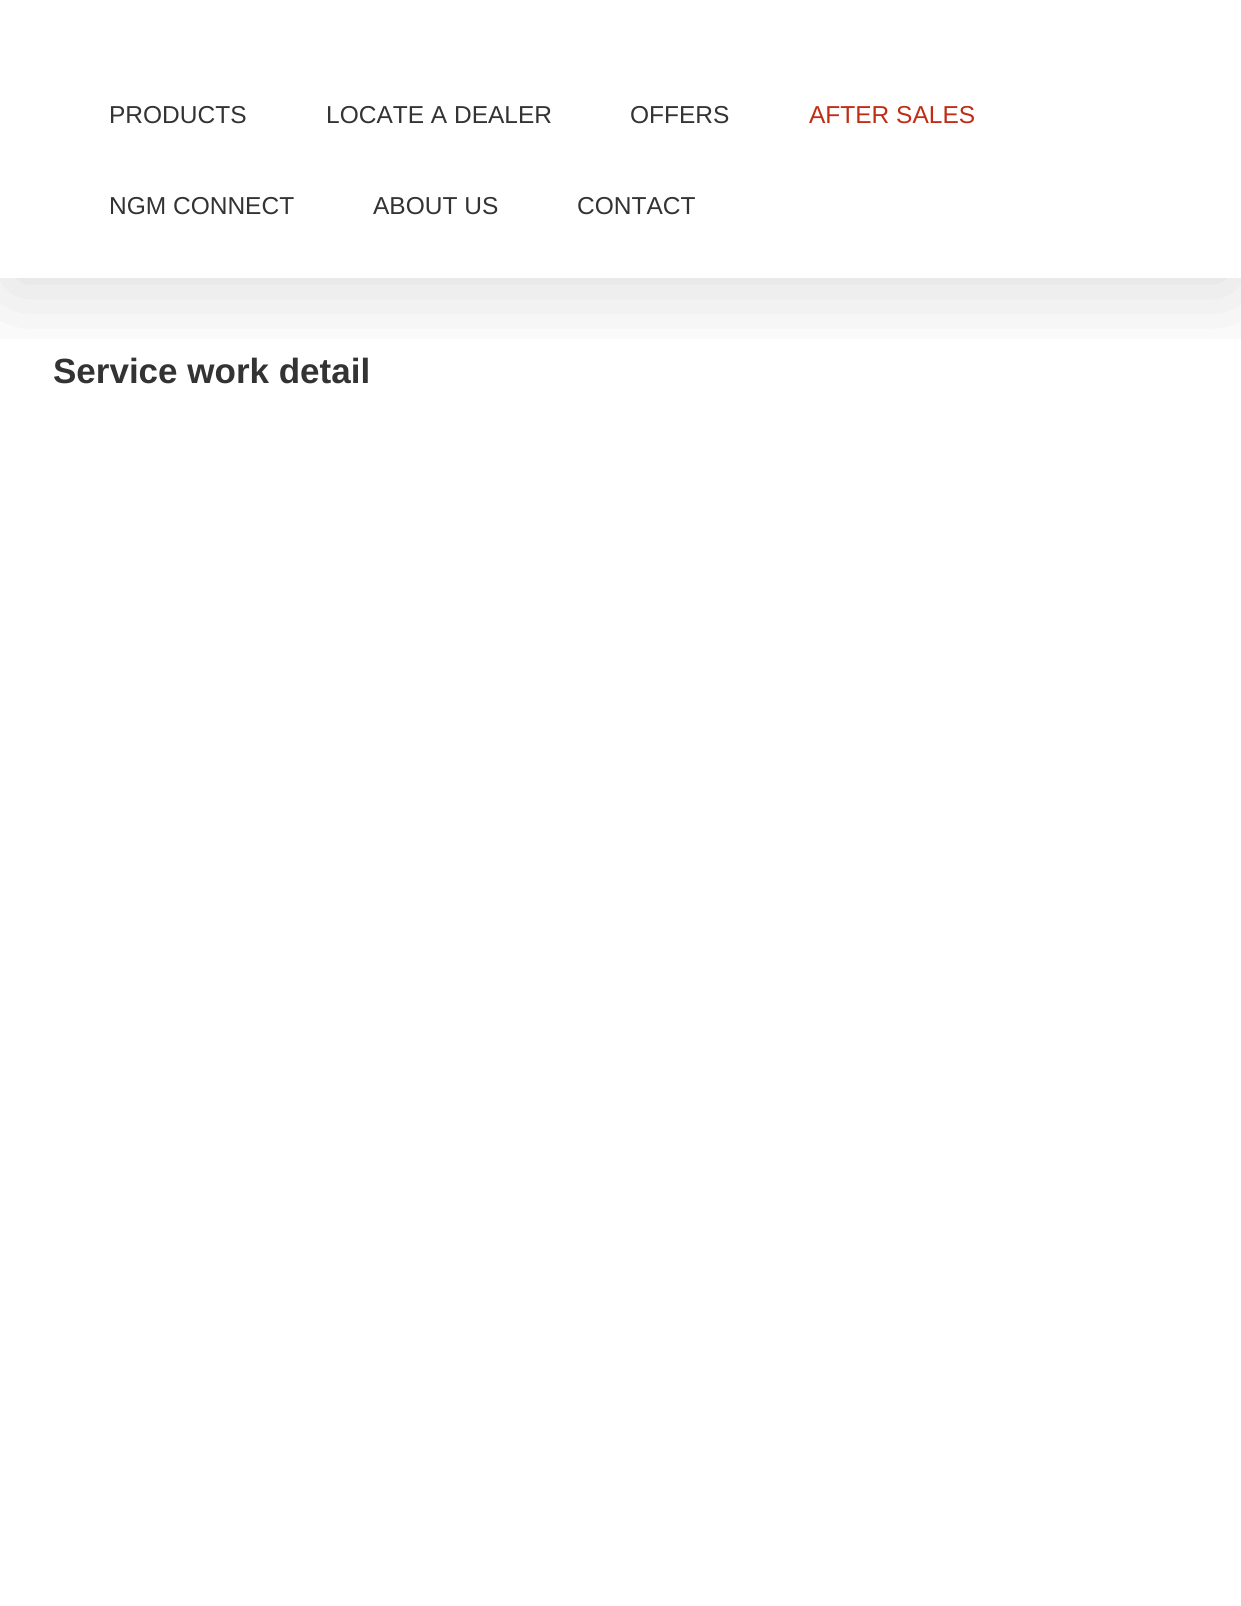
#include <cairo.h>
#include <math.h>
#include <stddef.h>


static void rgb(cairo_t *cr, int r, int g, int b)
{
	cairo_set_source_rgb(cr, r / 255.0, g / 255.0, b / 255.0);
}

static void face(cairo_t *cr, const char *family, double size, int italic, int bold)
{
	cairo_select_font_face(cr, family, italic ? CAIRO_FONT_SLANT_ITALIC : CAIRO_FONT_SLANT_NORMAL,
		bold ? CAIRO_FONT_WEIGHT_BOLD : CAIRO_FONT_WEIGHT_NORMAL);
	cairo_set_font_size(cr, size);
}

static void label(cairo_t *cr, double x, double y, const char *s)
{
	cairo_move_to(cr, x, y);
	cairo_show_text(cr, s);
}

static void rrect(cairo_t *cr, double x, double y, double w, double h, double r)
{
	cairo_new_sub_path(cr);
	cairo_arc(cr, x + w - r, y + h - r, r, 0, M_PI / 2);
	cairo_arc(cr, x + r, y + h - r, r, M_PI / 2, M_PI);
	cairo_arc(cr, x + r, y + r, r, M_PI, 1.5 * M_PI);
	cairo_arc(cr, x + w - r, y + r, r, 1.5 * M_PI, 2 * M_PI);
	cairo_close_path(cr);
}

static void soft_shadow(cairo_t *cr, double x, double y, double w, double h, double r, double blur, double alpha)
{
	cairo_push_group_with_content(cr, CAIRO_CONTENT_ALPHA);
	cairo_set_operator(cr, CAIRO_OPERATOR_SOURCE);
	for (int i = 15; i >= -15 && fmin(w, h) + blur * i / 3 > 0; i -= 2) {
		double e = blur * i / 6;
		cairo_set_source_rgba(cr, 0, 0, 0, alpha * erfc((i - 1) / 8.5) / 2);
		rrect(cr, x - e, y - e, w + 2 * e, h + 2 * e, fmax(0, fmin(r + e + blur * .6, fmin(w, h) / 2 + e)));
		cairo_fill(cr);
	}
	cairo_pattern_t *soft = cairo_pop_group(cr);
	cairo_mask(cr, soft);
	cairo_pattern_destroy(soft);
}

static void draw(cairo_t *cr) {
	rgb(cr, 255, 255, 255);
	cairo_paint(cr);
	cairo_save(cr);
	cairo_rectangle(cr, 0, 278, 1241, 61);
	cairo_clip(cr);
	rgb(cr, 0, 0, 0);
	soft_shadow(cr, 4, 21, 1235, 271, 0, 44, 0.14);
	cairo_restore(cr);
	face(cr, "Liberation Sans", 24.5, 0, 0);
	rgb(cr, 51, 51, 51);
	label(cr, 109, 123, "PRODUCTS");
	label(cr, 326, 123, "LOCATE A DEALER");
	label(cr, 630, 123, "OFFERS");
	rgb(cr, 193, 44, 21);
	label(cr, 809, 123, "AFTER SALES");
	rgb(cr, 51, 51, 51);
	label(cr, 109, 214, "NGM CONNECT");
	label(cr, 373, 214, "ABOUT US");
	label(cr, 577, 214, "CONTACT");
	face(cr, "Liberation Sans", 35, 0, 1);
	label(cr, 53, 383, "Service work detail");
}

int main(void) {
	cairo_surface_t *surface = cairo_image_surface_create(CAIRO_FORMAT_RGB24, 1241, 1606);
	cairo_t *cr = cairo_create(surface);
	cairo_font_options_t *options = cairo_font_options_create();
	cairo_font_options_set_hint_metrics(options, CAIRO_HINT_METRICS_OFF);
	cairo_font_options_set_hint_style(options, CAIRO_HINT_STYLE_NONE);
	cairo_set_font_options(cr, options);
	cairo_set_miter_limit(cr, 4);
	draw(cr);
	cairo_surface_write_to_png(surface, "render.png");
	cairo_font_options_destroy(options);
	cairo_destroy(cr);
	cairo_surface_destroy(surface);
	return 0;
}
